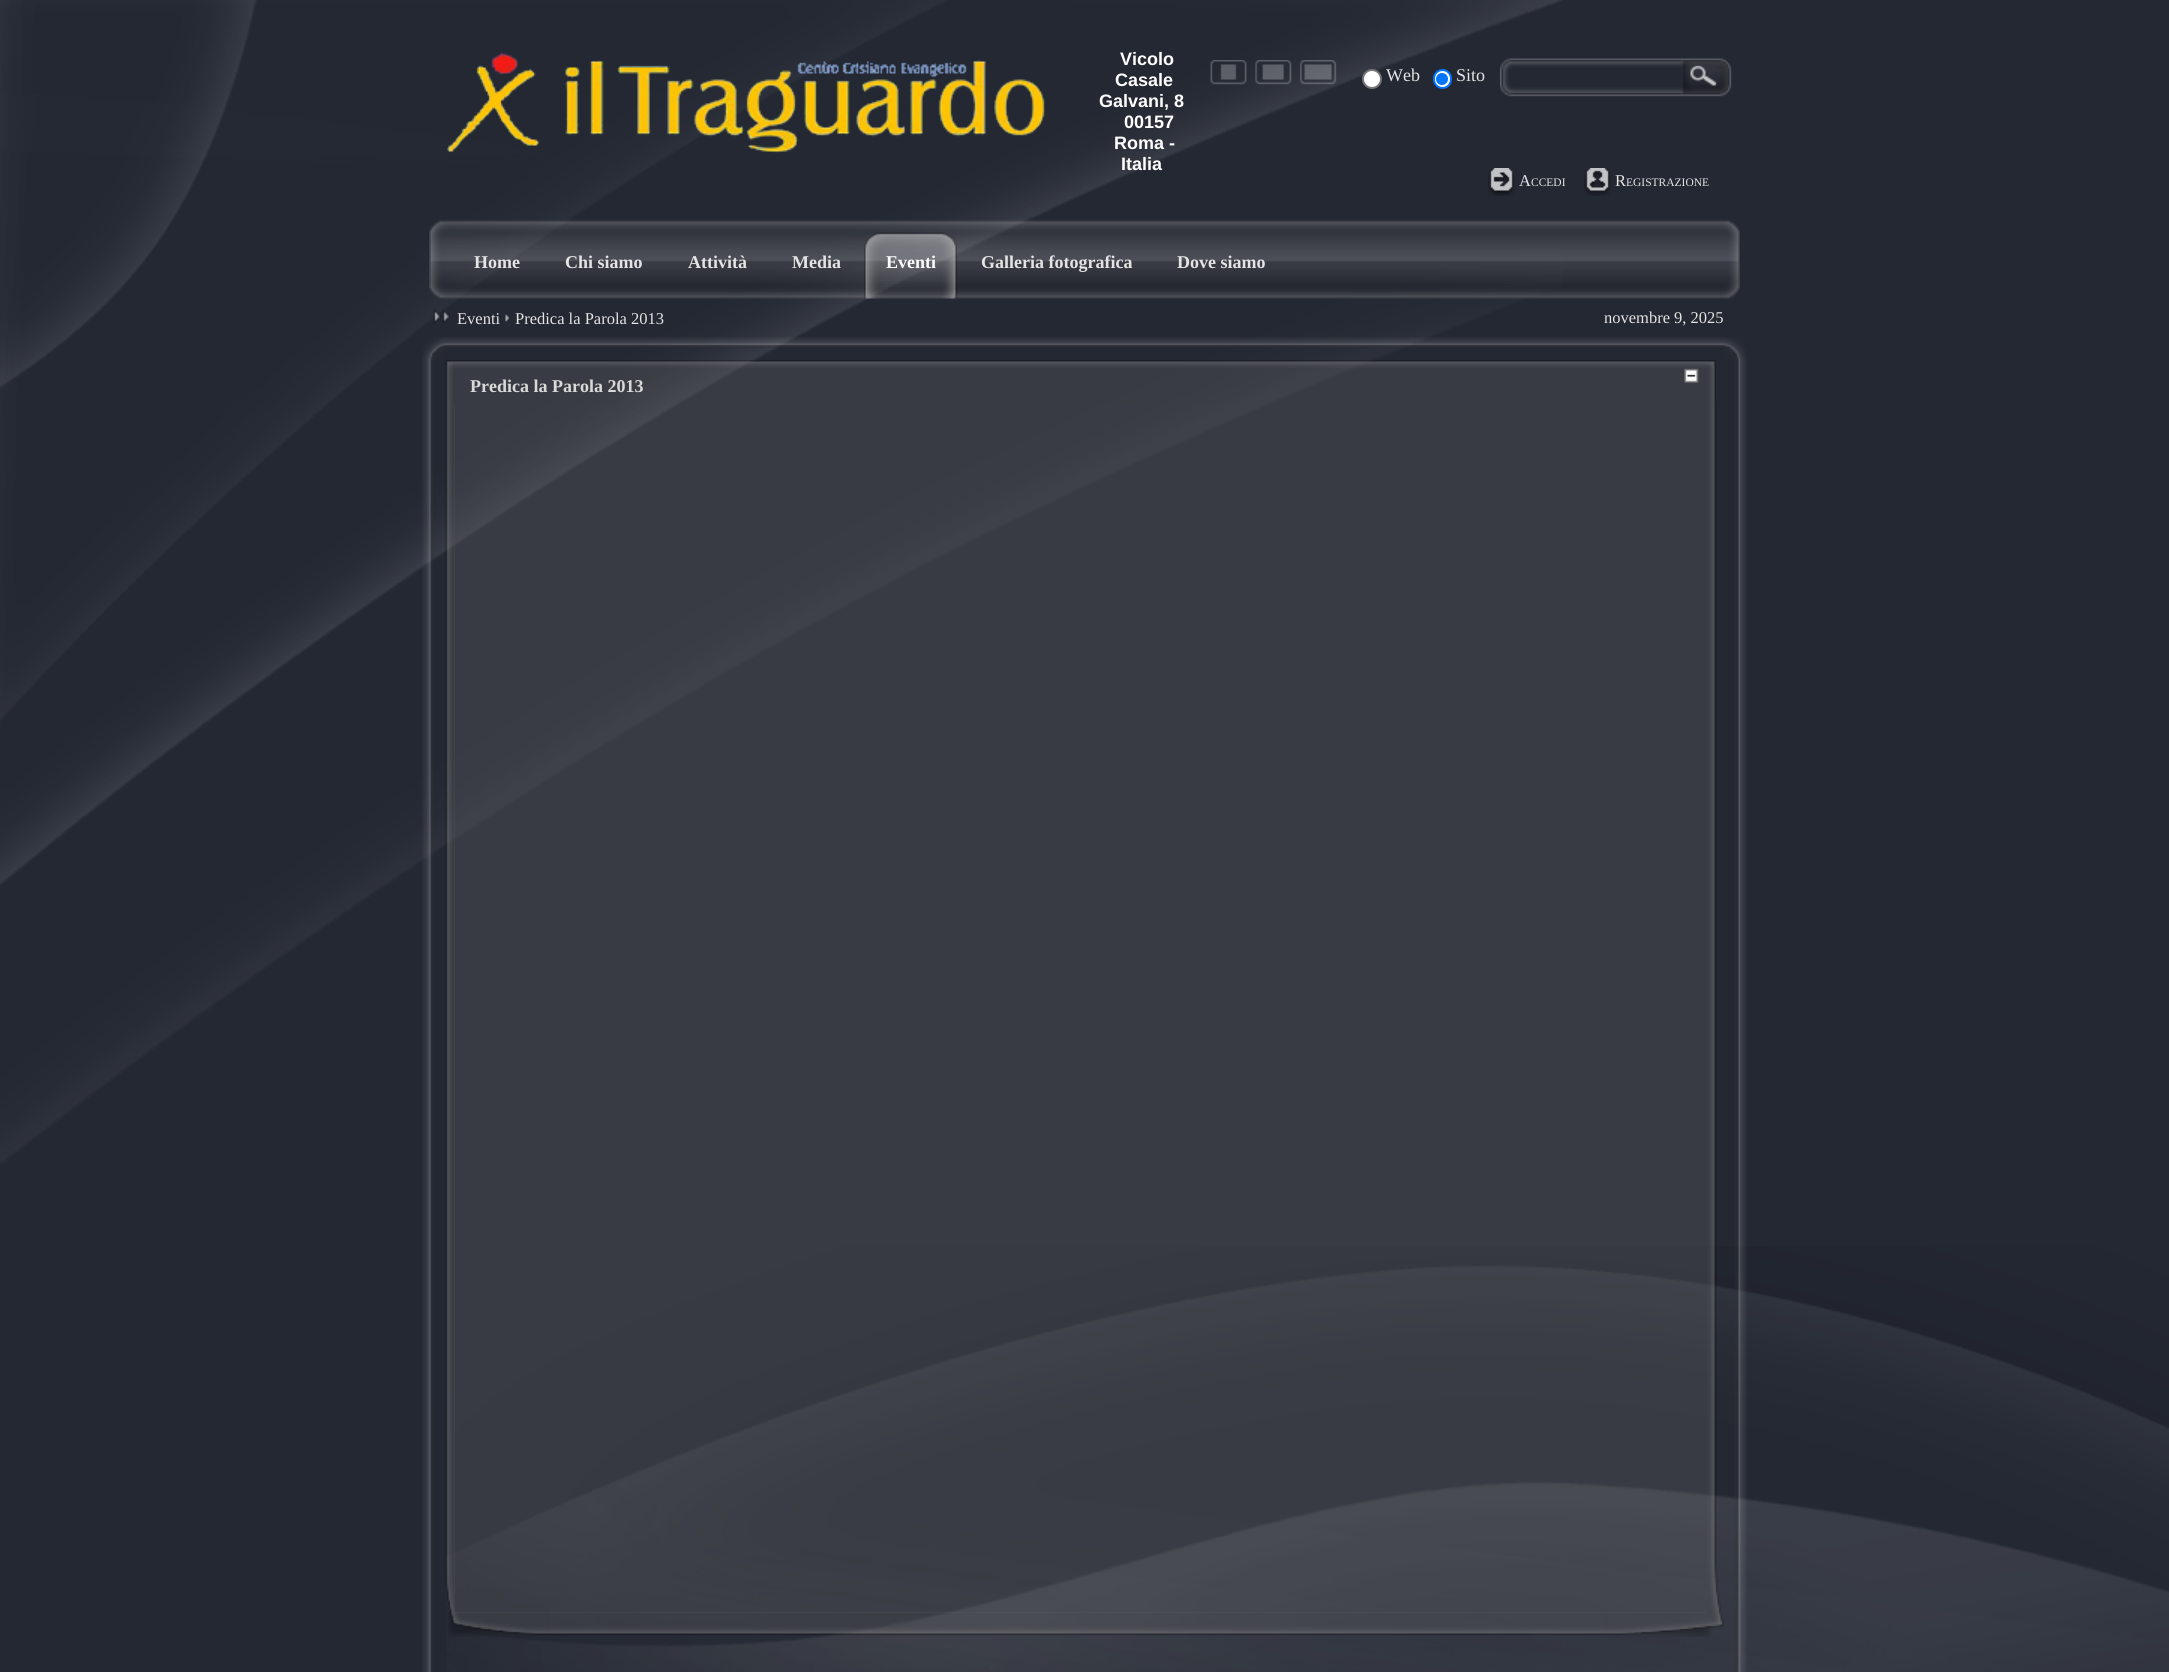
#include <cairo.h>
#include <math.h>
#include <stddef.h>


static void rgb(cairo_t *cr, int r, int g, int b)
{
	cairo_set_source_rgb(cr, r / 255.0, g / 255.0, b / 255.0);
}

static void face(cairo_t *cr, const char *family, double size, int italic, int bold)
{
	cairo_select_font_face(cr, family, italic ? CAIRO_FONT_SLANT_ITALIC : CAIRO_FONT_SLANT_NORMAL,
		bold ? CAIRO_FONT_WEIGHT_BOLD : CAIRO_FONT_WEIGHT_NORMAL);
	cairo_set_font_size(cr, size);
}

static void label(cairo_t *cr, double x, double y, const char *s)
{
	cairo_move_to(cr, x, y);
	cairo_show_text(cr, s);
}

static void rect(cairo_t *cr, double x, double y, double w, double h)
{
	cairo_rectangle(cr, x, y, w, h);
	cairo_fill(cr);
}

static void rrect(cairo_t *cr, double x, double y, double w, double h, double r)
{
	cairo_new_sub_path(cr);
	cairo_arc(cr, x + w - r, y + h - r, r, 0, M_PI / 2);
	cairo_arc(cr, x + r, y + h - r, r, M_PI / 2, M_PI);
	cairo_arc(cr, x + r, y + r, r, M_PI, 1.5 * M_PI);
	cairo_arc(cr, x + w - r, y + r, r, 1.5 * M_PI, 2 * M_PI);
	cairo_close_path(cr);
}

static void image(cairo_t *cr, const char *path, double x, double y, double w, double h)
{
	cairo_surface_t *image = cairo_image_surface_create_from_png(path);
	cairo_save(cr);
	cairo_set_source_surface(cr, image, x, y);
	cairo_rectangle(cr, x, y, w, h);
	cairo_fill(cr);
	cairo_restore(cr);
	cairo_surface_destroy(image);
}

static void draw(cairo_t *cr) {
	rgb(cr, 36, 40, 51);
	cairo_paint(cr);
	image(cr, "image0.png", 0, 0, 1563, 1164);
	image(cr, "image1.png", 446, 1246, 1723, 426);
	image(cr, "image2.png", 446, 52, 599, 101);
	face(cr, "Liberation Sans", 18, 0, 1);
	rgb(cr, 254, 254, 254);
	label(cr, 1120, 65, "Vicolo");
	label(cr, 1115, 86, "Casale");
	label(cr, 1099, 107, "Galvani, 8");
	label(cr, 1124, 128, "00157");
	label(cr, 1114, 149, "Roma -");
	label(cr, 1121, 170, "Italia");
	image(cr, "image3.png", 1210, 60, 127, 25);
	image(cr, "image4.png", 1500, 58, 232, 39);
	rgb(cr, 255, 255, 255);
	cairo_arc(cr, 1372, 79, 9, 0, 2 * M_PI);
	cairo_fill_preserve(cr);
	rgb(cr, 118, 118, 118);
	cairo_stroke(cr);
	face(cr, "Liberation Serif", 18, 0, 0);
	rgb(cr, 228, 228, 228);
	label(cr, 1386, 81, "Web");
	rgb(cr, 255, 255, 255);
	rrect(cr, 1434, 70, 17, 18, 8.5);
	cairo_fill_preserve(cr);
	rgb(cr, 0, 117, 255);
	cairo_stroke(cr);
	cairo_arc(cr, 1442, 79, 6, 0, 2 * M_PI);
	cairo_fill(cr);
	rgb(cr, 228, 228, 228);
	label(cr, 1456, 81, "Sito");
	image(cr, "image5.png", 1488, 168, 27, 28);
	face(cr, "Liberation Serif", 16.5, 0, 0);
	label(cr, 1519, 186, "A");
	face(cr, "Liberation Serif", 11.5, 0, 0);
	label(cr, 1531, 186, "CCEDI");
	image(cr, "image6.png", 1584, 168, 27, 28);
	face(cr, "Liberation Serif", 16.5, 0, 0);
	label(cr, 1615, 186, "R");
	face(cr, "Liberation Serif", 11.5, 0, 0);
	label(cr, 1626, 186, "EGISTRAZIONE");
	image(cr, "image7.png", 429, 220, 21, 79);
	image(cr, "image8.png", 450, 220, 1269, 79);
	face(cr, "Liberation Serif", 18, 0, 1);
	label(cr, 474, 268, "Home");
	label(cr, 565, 268, "Chi siamo");
	label(cr, 688, 268, "Attività");
	label(cr, 792, 268, "Media");
	image(cr, "image9.png", 864, 232, 21, 67);
	image(cr, "image10.png", 885, 232, 51, 67);
	rgb(cr, 254, 254, 254);
	label(cr, 886, 268, "Eventi");
	image(cr, "image11.png", 936, 232, 21, 67);
	rgb(cr, 228, 228, 228);
	label(cr, 981, 268, "Galleria fotografica");
	label(cr, 1177, 268, "Dove siamo");
	image(cr, "image12.png", 1719, 220, 21, 79);
	image(cr, "image13.png", 433, 309, 17, 15);
	face(cr, "Liberation Serif", 16.5, 0, 0);
	label(cr, 457, 324, "Eventi");
	image(cr, "image14.png", 505, 314, 4, 8);
	label(cr, 515, 324, "Predica la Parola 2013");
	label(cr, 1604, 323, "novembre 9, 2025");
	image(cr, "image16.png", 445, 337, 1279, 11);
	image(cr, "image15.png", 422, 337, 24, 23);
	image(cr, "image17.png", 1723, 337, 24, 23);
	image(cr, "image18.png", 422, 360, 11, 1312);
	image(cr, "image20.png", 454, 360, 1253, 45);
	image(cr, "image19.png", 445, 360, 10, 45);
	image(cr, "image21.png", 1684, 368, 15, 15);
	face(cr, "Liberation Serif", 18, 0, 1);
	rgb(cr, 217, 217, 217);
	label(cr, 470, 392, "Predica la Parola 2013");
	image(cr, "image22.png", 1707, 360, 9, 45);
	image(cr, "image23.png", 445, 405, 10, 1208);
	cairo_set_source_rgba(cr, 0.404, 0.404, 0.404, 0.3);
	rect(cr, 454, 405, 1253, 1208);
	image(cr, "image24.png", 1707, 405, 14, 1208);
	image(cr, "image26.png", 547, 1612, 1060, 24);
	image(cr, "image25.png", 448, 1612, 100, 25);
	image(cr, "image27.png", 1606, 1612, 118, 25);
	image(cr, "image28.png", 1734, 360, 13, 1312);
}

int main(void) {
	cairo_surface_t *surface = cairo_image_surface_create(CAIRO_FORMAT_RGB24, 2169, 1672);
	cairo_t *cr = cairo_create(surface);
	cairo_font_options_t *options = cairo_font_options_create();
	cairo_font_options_set_hint_metrics(options, CAIRO_HINT_METRICS_OFF);
	cairo_font_options_set_hint_style(options, CAIRO_HINT_STYLE_NONE);
	cairo_set_font_options(cr, options);
	cairo_set_miter_limit(cr, 4);
	draw(cr);
	cairo_surface_write_to_png(surface, "render.png");
	cairo_font_options_destroy(options);
	cairo_destroy(cr);
	cairo_surface_destroy(surface);
	return 0;
}
